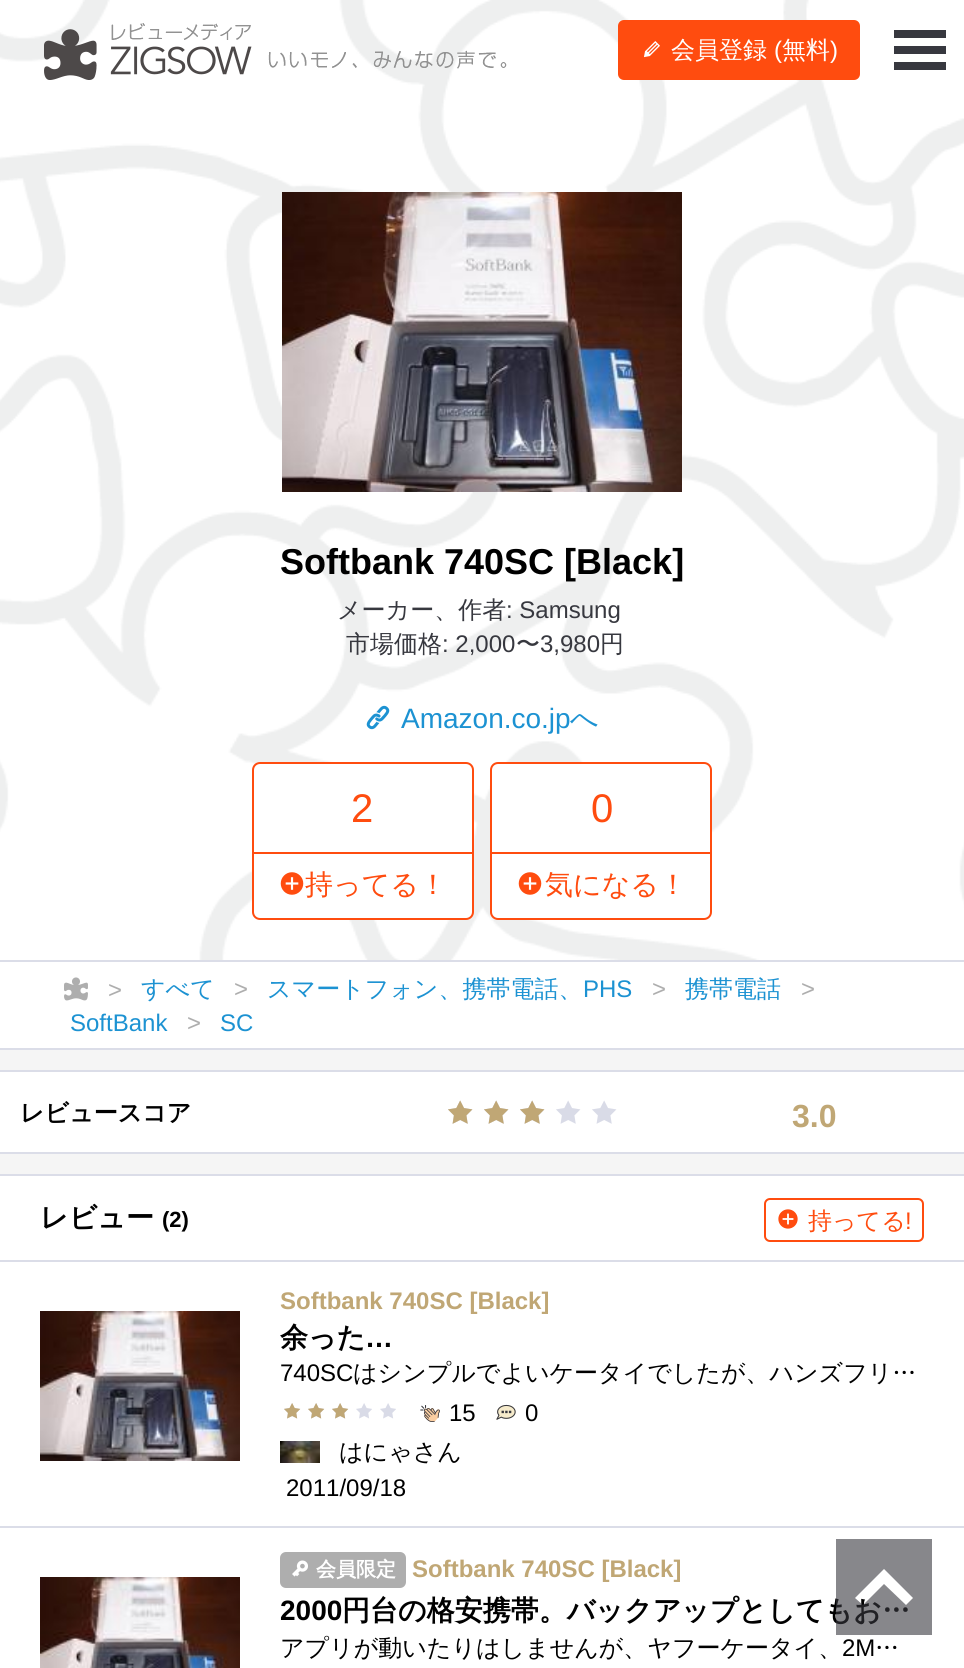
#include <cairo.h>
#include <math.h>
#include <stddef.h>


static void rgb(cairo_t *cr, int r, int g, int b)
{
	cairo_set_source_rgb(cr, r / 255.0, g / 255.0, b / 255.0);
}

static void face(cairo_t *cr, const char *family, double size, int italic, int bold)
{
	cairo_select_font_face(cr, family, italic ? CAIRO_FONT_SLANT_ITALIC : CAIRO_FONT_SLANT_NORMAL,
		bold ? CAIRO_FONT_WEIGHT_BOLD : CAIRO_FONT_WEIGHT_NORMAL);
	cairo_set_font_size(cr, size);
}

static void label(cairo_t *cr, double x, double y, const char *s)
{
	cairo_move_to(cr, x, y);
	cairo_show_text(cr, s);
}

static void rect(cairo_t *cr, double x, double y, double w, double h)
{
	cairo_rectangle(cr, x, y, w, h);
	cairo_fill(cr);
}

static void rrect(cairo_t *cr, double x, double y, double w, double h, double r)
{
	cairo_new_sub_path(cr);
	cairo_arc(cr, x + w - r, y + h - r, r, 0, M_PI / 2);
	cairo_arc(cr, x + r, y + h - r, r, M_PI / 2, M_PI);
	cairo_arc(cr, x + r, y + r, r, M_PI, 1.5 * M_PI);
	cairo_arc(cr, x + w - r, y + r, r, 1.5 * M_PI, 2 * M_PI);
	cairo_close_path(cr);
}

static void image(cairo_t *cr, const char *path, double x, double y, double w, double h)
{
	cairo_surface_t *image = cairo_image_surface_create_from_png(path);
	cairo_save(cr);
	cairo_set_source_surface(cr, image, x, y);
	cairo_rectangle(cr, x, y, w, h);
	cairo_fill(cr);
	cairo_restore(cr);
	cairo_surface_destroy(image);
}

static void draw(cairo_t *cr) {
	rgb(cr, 245, 245, 245);
	cairo_paint(cr);
	rgb(cr, 255, 255, 255);
	rect(cr, 0, 0, 964, 960);
	image(cr, "image2.png", 0, 0, 964, 960);
	image(cr, "image0.png", 44, 23, 463, 57);
	rgb(cr, 255, 76, 15);
	rrect(cr, 619, 21, 240, 58, 5);
	cairo_fill_preserve(cr);
	cairo_stroke(cr);
	image(cr, "image1.png", 644, 41, 16, 17);
	face(cr, "WenQuanYi Zen Hei Medium", 24, 0, 0);
	rgb(cr, 255, 255, 255);
	label(cr, 671, 58, "会員登録");
	face(cr, "Liberation Sans", 24, 0, 0);
	label(cr, 774, 58, "(");
	face(cr, "WenQuanYi Zen Hei Medium", 24, 0, 0);
	label(cr, 782, 58, "無料");
	face(cr, "Liberation Sans", 24, 0, 0);
	label(cr, 830, 58, ")");
	rgb(cr, 55, 56, 63);
	cairo_new_path(cr);
	cairo_move_to(cr, 946, 38);
	cairo_line_to(cr, 946, 30);
	cairo_line_to(cr, 894, 30);
	cairo_line_to(cr, 894, 38);
	cairo_close_path(cr);
	cairo_move_to(cr, 946, 46);
	cairo_line_to(cr, 894, 46);
	cairo_line_to(cr, 894, 54);
	cairo_line_to(cr, 946, 54);
	cairo_close_path(cr);
	cairo_move_to(cr, 946, 62);
	cairo_line_to(cr, 894, 62);
	cairo_line_to(cr, 894, 70);
	cairo_line_to(cr, 946, 70);
	cairo_close_path(cr);
	cairo_fill(cr);
	image(cr, "image3.png", 282, 192, 400, 300);
	face(cr, "Liberation Sans", 36, 0, 1);
	rgb(cr, 0, 0, 0);
	label(cr, 280, 574, "Softbank 740SC [Black]");
	face(cr, "WenQuanYi Zen Hei Medium", 24, 0, 0);
	rgb(cr, 55, 56, 63);
	label(cr, 337, 618, "メーカー、作者");
	face(cr, "Liberation Sans", 24, 0, 0);
	label(cr, 506, 618, ": Samsung");
	face(cr, "WenQuanYi Zen Hei Medium", 24, 0, 0);
	label(cr, 346, 652, "市場価格");
	face(cr, "Liberation Sans", 24, 0, 0);
	label(cr, 442, 652, ": 2,000");
	face(cr, "WenQuanYi Zen Hei Medium", 24, 0, 0);
	label(cr, 516, 652, "〜");
	face(cr, "Liberation Sans", 24, 0, 0);
	label(cr, 540, 652, "3,980");
	face(cr, "WenQuanYi Zen Hei Medium", 24, 0, 0);
	label(cr, 600, 652, "円");
	image(cr, "image4.png", 366, 705, 24, 25);
	face(cr, "Liberation Sans", 28, 0, 0);
	rgb(cr, 28, 146, 210);
	label(cr, 401, 728, "Amazon.co.jp");
	face(cr, "WenQuanYi Zen Hei Medium", 28, 0, 0);
	label(cr, 570, 728, "へ");
	rgb(cr, 255, 255, 255);
	rrect(cr, 253, 763, 220, 156, 7);
	cairo_fill_preserve(cr);
	rgb(cr, 255, 76, 15);
	cairo_stroke(cr);
	rect(cr, 254, 852, 218, 2);
	face(cr, "Liberation Sans", 40, 0, 0);
	label(cr, 351, 822, "2");
	image(cr, "image5.png", 280, 872, 24, 23);
	face(cr, "WenQuanYi Zen Hei Medium", 28, 0, 0);
	label(cr, 305, 894, "持ってる！");
	rgb(cr, 255, 255, 255);
	rrect(cr, 491, 763, 220, 156, 7);
	cairo_fill_preserve(cr);
	rgb(cr, 255, 76, 15);
	cairo_stroke(cr);
	rect(cr, 492, 852, 218, 2);
	face(cr, "Liberation Sans", 40, 0, 0);
	label(cr, 591, 822, "0");
	image(cr, "image5.png", 518, 872, 24, 23);
	face(cr, "WenQuanYi Zen Hei Medium", 28, 0, 0);
	label(cr, 545, 894, "気になる！");
	rgb(cr, 255, 255, 255);
	rect(cr, 0, 962, 964, 86);
	rgb(cr, 219, 221, 232);
	rect(cr, 0, 960, 964, 2);
	rect(cr, 0, 1048, 964, 2);
	image(cr, "image6.png", 64, 977, 24, 24);
	face(cr, "Liberation Sans", 24, 0, 0);
	rgb(cr, 174, 174, 174);
	label(cr, 108, 998, ">");
	face(cr, "WenQuanYi Zen Hei Medium", 24, 0, 0);
	rgb(cr, 28, 146, 210);
	label(cr, 141, 997, "すべて");
	face(cr, "Liberation Sans", 24, 0, 0);
	rgb(cr, 174, 174, 174);
	label(cr, 234, 997, ">");
	face(cr, "WenQuanYi Zen Hei Medium", 24, 0, 0);
	rgb(cr, 28, 146, 210);
	label(cr, 267, 997, "スマートフォン、携帯電話、");
	face(cr, "Liberation Sans", 24, 0, 0);
	label(cr, 583, 997, "PHS");
	rgb(cr, 174, 174, 174);
	label(cr, 652, 997, ">");
	face(cr, "WenQuanYi Zen Hei Medium", 24, 0, 0);
	rgb(cr, 28, 146, 210);
	label(cr, 685, 997, "携帯電話");
	face(cr, "Liberation Sans", 24, 0, 0);
	rgb(cr, 174, 174, 174);
	label(cr, 801, 997, ">");
	rgb(cr, 28, 146, 210);
	label(cr, 70, 1031, "SoftBank");
	rgb(cr, 174, 174, 174);
	label(cr, 187, 1031, ">");
	rgb(cr, 28, 146, 210);
	label(cr, 220, 1031, "SC");
	rgb(cr, 255, 255, 255);
	rect(cr, 0, 1072, 964, 80);
	rgb(cr, 219, 221, 232);
	rect(cr, 0, 1070, 964, 2);
	rect(cr, 0, 1152, 964, 2);
	face(cr, "WenQuanYi Zen Hei", 24, 0, 1);
	rgb(cr, 0, 0, 0);
	label(cr, 20, 1121, "レビュースコア");
	image(cr, "image7.png", 448, 1100, 25, 24);
	image(cr, "image8.png", 448, 1100, 25, 24);
	image(cr, "image7.png", 484, 1100, 25, 24);
	image(cr, "image8.png", 484, 1100, 25, 24);
	image(cr, "image7.png", 520, 1100, 25, 24);
	image(cr, "image8.png", 520, 1100, 25, 24);
	image(cr, "image7.png", 556, 1100, 25, 24);
	image(cr, "image7.png", 592, 1100, 25, 24);
	face(cr, "Liberation Sans", 32, 0, 1);
	rgb(cr, 192, 167, 117);
	label(cr, 792, 1127, "3.0");
	rgb(cr, 255, 255, 255);
	rect(cr, 0, 1176, 964, 492);
	rgb(cr, 219, 221, 232);
	rect(cr, 0, 1174, 964, 2);
	face(cr, "WenQuanYi Zen Hei", 28, 0, 1);
	rgb(cr, 0, 0, 0);
	label(cr, 40, 1227, "レビュー");
	face(cr, "Liberation Sans", 22, 0, 1);
	label(cr, 162, 1227, "(2)");
	rrect(cr, 765, 1199, 158, 42, 5);
	rgb(cr, 255, 76, 15);
	cairo_stroke(cr);
	image(cr, "image9.png", 778, 1209, 20, 20);
	face(cr, "WenQuanYi Zen Hei Medium", 24, 0, 0);
	label(cr, 808, 1229, "持ってる");
	face(cr, "Liberation Sans", 24, 0, 0);
	label(cr, 905, 1229, "!");
	rgb(cr, 219, 221, 232);
	rect(cr, 0, 1260, 964, 2);
	image(cr, "image10.png", 40, 1311, 200, 150);
	face(cr, "Liberation Sans", 24, 0, 1);
	rgb(cr, 192, 167, 117);
	label(cr, 280, 1309, "Softbank 740SC [Black]");
	face(cr, "WenQuanYi Zen Hei", 28, 0, 1);
	rgb(cr, 0, 0, 0);
	label(cr, 280, 1347, "余った");
	face(cr, "Liberation Sans", 28, 0, 1);
	label(cr, 365, 1347, "…");
	face(cr, "Liberation Sans", 24, 0, 0);
	label(cr, 280, 1381, "740SC");
	face(cr, "WenQuanYi Zen Hei Medium", 24, 0, 0);
	label(cr, 353, 1381, "はシンプルでよいケータイでしたが、ハンズフリ…");
	image(cr, "image11.png", 284, 1403, 16, 16);
	image(cr, "image12.png", 284, 1403, 17, 16);
	image(cr, "image11.png", 308, 1403, 16, 16);
	image(cr, "image12.png", 308, 1403, 17, 16);
	image(cr, "image11.png", 332, 1403, 16, 16);
	image(cr, "image12.png", 332, 1403, 17, 16);
	image(cr, "image11.png", 356, 1403, 16, 16);
	image(cr, "image11.png", 380, 1403, 16, 16);
	image(cr, "image14.png", 424, 1408, 16, 14);
	image(cr, "image13.png", 420, 1405, 20, 17);
	face(cr, "Liberation Sans", 24, 0, 0);
	label(cr, 449, 1421, "15");
	image(cr, "image16.png", 496, 1405, 20, 15);
	image(cr, "image15.png", 496, 1404, 20, 16);
	label(cr, 525, 1421, "0");
	image(cr, "image17.png", 280, 1441, 40, 22);
	face(cr, "WenQuanYi Zen Hei Medium", 24, 0, 0);
	label(cr, 339, 1460, "はにゃさん");
	face(cr, "Liberation Sans", 24, 0, 0);
	label(cr, 286, 1496, "2011/09/18");
	rgb(cr, 219, 221, 232);
	rect(cr, 0, 1526, 964, 2);
	image(cr, "image18.png", 40, 1577, 200, 91);
	rgb(cr, 174, 174, 174);
	rrect(cr, 280, 1552, 126, 36, 6);
	cairo_fill(cr);
	image(cr, "image19.png", 292, 1560, 16, 17);
	face(cr, "WenQuanYi Zen Hei", 20, 0, 1);
	rgb(cr, 255, 255, 255);
	label(cr, 316, 1576, "会員限定");
	face(cr, "Liberation Sans", 24, 0, 1);
	rgb(cr, 192, 167, 117);
	label(cr, 412, 1577, "Softbank 740SC [Black]");
	face(cr, "Liberation Sans", 28, 0, 1);
	rgb(cr, 0, 0, 0);
	label(cr, 280, 1620, "2000");
	face(cr, "WenQuanYi Zen Hei", 28, 0, 1);
	label(cr, 342, 1620, "円台の格安携帯。バックアップとしてもお…");
	face(cr, "WenQuanYi Zen Hei Medium", 24, 0, 0);
	label(cr, 280, 1656, "アプリが動いたりはしませんが、ヤフーケータイ、");
	face(cr, "Liberation Sans", 24, 0, 0);
	label(cr, 842, 1656, "2M");
	face(cr, "WenQuanYi Zen Hei Medium", 24, 0, 0);
	label(cr, 875, 1656, "…");
	cairo_set_source_rgba(cr, 0.216, 0.22, 0.247, 0.6);
	cairo_new_path(cr);
	cairo_move_to(cr, 836, 1635);
	cairo_line_to(cr, 932, 1635);
	cairo_line_to(cr, 932, 1539);
	cairo_line_to(cr, 836, 1539);
	cairo_close_path(cr);
	cairo_move_to(cr, 906, 1605);
	cairo_line_to(cr, 884, 1584);
	cairo_line_to(cr, 863, 1605);
	cairo_line_to(cr, 855, 1598);
	cairo_line_to(cr, 884, 1569);
	cairo_line_to(cr, 913, 1598);
	cairo_close_path(cr);
	cairo_fill(cr);
}

int main(void) {
	cairo_surface_t *surface = cairo_image_surface_create(CAIRO_FORMAT_RGB24, 964, 1668);
	cairo_t *cr = cairo_create(surface);
	cairo_font_options_t *options = cairo_font_options_create();
	cairo_font_options_set_hint_metrics(options, CAIRO_HINT_METRICS_OFF);
	cairo_font_options_set_hint_style(options, CAIRO_HINT_STYLE_NONE);
	cairo_set_font_options(cr, options);
	cairo_set_miter_limit(cr, 4);
	draw(cr);
	cairo_surface_write_to_png(surface, "render.png");
	cairo_font_options_destroy(options);
	cairo_destroy(cr);
	cairo_surface_destroy(surface);
	return 0;
}
